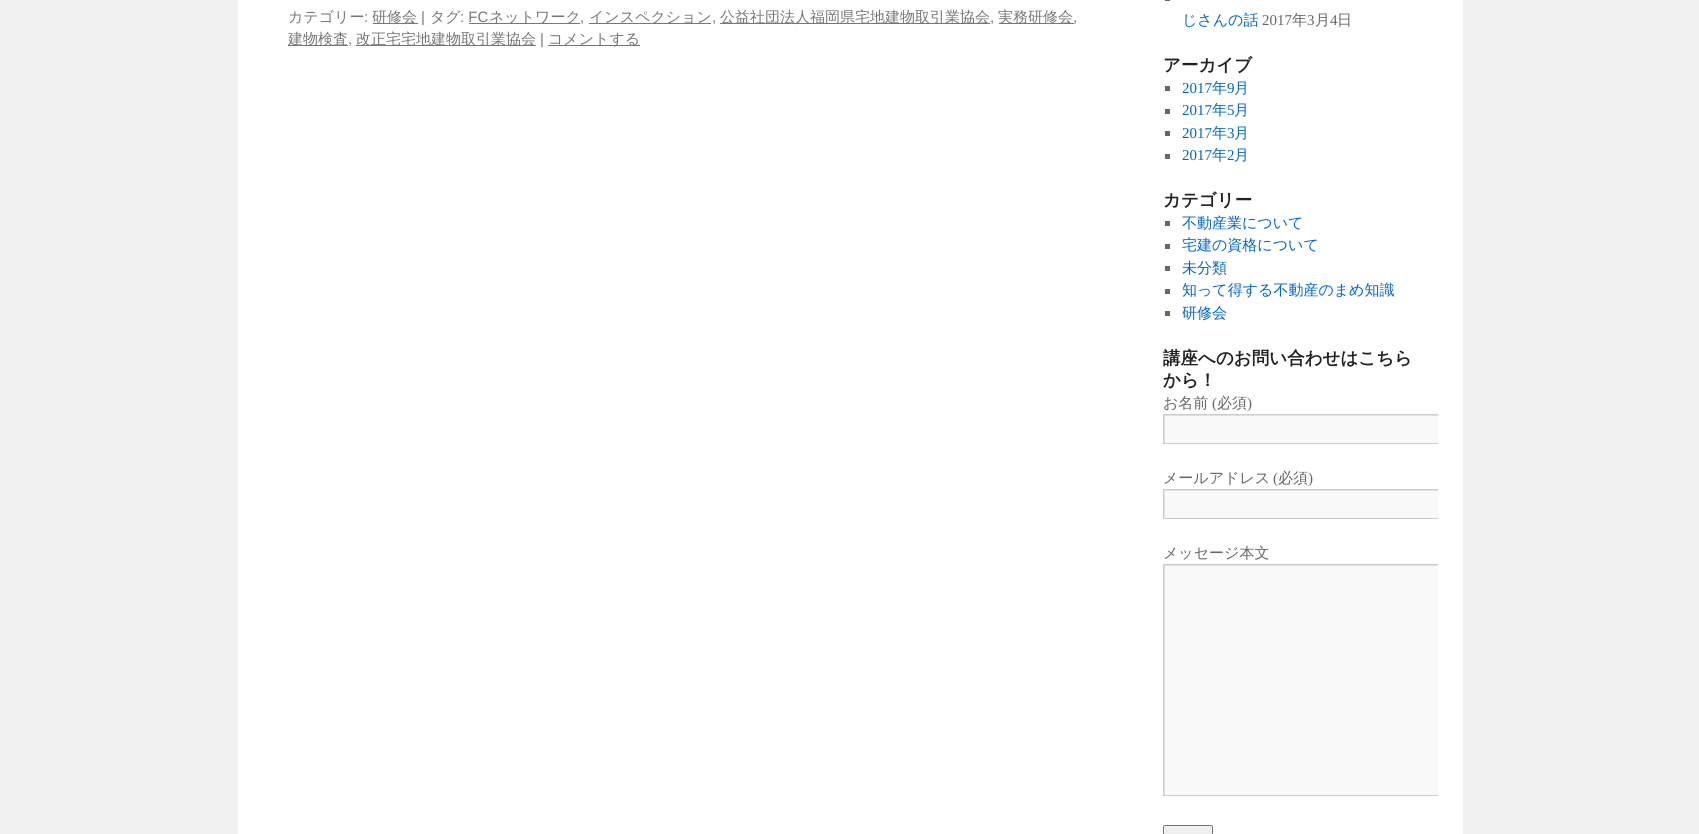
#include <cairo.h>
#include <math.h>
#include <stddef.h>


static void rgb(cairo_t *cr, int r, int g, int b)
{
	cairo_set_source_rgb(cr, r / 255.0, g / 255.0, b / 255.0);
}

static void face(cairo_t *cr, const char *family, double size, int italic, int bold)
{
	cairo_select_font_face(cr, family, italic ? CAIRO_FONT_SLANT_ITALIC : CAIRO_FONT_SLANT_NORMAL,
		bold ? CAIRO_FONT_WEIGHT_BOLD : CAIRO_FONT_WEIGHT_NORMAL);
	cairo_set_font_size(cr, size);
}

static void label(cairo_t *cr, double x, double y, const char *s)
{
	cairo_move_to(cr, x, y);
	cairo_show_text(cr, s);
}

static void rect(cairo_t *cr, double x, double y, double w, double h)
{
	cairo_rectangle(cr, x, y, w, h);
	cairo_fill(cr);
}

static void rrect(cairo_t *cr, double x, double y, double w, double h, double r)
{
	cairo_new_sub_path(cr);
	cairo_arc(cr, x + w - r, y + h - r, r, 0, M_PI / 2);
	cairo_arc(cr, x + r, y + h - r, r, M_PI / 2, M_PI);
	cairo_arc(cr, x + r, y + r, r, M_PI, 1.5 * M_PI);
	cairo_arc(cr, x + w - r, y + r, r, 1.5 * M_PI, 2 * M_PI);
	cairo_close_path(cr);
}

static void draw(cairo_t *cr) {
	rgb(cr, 241, 241, 241);
	cairo_paint(cr);
	rgb(cr, 255, 255, 255);
	rect(cr, 238, 0, 1225, 834);
	face(cr, "WenQuanYi Zen Hei Medium", 15, 0, 0);
	rgb(cr, 119, 119, 119);
	label(cr, 288, 22, "カテゴリー");
	face(cr, "Liberation Sans", 15, 0, 0);
	label(cr, 364, 22, ":");
	rect(cr, 373, 23, 45, 1);
	face(cr, "WenQuanYi Zen Hei Medium", 15, 0, 0);
	label(cr, 372, 22, "研修会");
	face(cr, "Liberation Sans", 15, 0, 0);
	label(cr, 421, 22, "|");
	face(cr, "WenQuanYi Zen Hei Medium", 15, 0, 0);
	label(cr, 430, 22, "タグ");
	face(cr, "Liberation Sans", 15, 0, 0);
	label(cr, 460, 22, ": FC");
	rect(cr, 469, 23, 111, 1);
	face(cr, "WenQuanYi Zen Hei Medium", 15, 0, 0);
	label(cr, 489, 22, "ネットワーク");
	face(cr, "Liberation Sans", 15, 0, 0);
	label(cr, 580, 22, ",");
	rect(cr, 589, 23, 122, 1);
	face(cr, "WenQuanYi Zen Hei Medium", 15, 0, 0);
	label(cr, 589, 22, "インスペクション");
	face(cr, "Liberation Sans", 15, 0, 0);
	label(cr, 712, 22, ",");
	rect(cr, 720, 23, 270, 1);
	face(cr, "WenQuanYi Zen Hei Medium", 15, 0, 0);
	label(cr, 720, 22, "公益社団法人福岡県宅地建物取引業協会");
	face(cr, "Liberation Sans", 15, 0, 0);
	label(cr, 990, 22, ",");
	rect(cr, 999, 23, 75, 1);
	face(cr, "WenQuanYi Zen Hei Medium", 15, 0, 0);
	label(cr, 998, 22, "実務研修会");
	face(cr, "Liberation Sans", 15, 0, 0);
	label(cr, 1073, 22, ",");
	rect(cr, 288, 45, 60, 1);
	face(cr, "WenQuanYi Zen Hei Medium", 15, 0, 0);
	label(cr, 288, 44, "建物検査");
	face(cr, "Liberation Sans", 15, 0, 0);
	label(cr, 348, 44, ",");
	rect(cr, 356, 45, 180, 1);
	face(cr, "WenQuanYi Zen Hei Medium", 15, 0, 0);
	label(cr, 356, 44, "改正宅宅地建物取引業協会");
	face(cr, "Liberation Sans", 15, 0, 0);
	label(cr, 540, 44, "|");
	rect(cr, 548, 45, 92, 1);
	face(cr, "WenQuanYi Zen Hei Medium", 15, 0, 0);
	label(cr, 548, 44, "コメントする");
	rgb(cr, 102, 102, 102);
	rect(cr, 1165, 0, 5, 1);
	rgb(cr, 0, 102, 204);
	label(cr, 1182, 25, "じさんの話");
	face(cr, "Liberation Serif", 15, 0, 0);
	rgb(cr, 102, 102, 102);
	label(cr, 1262, 25, "2017");
	face(cr, "WenQuanYi Zen Hei Medium", 15, 0, 0);
	label(cr, 1292, 25, "年");
	face(cr, "Liberation Serif", 15, 0, 0);
	label(cr, 1307, 25, "3");
	face(cr, "WenQuanYi Zen Hei Medium", 15, 0, 0);
	label(cr, 1315, 25, "月");
	face(cr, "Liberation Serif", 15, 0, 0);
	label(cr, 1330, 25, "4");
	face(cr, "WenQuanYi Zen Hei Medium", 15, 0, 0);
	label(cr, 1337, 25, "日");
	face(cr, "WenQuanYi Zen Hei", 17.5, 0, 1);
	rgb(cr, 34, 34, 34);
	label(cr, 1163, 71, "アーカイブ");
	rgb(cr, 102, 102, 102);
	rect(cr, 1165, 86, 5, 5);
	face(cr, "Liberation Serif", 15, 0, 0);
	rgb(cr, 0, 102, 204);
	label(cr, 1182, 93, "2017");
	face(cr, "WenQuanYi Zen Hei Medium", 15, 0, 0);
	label(cr, 1212, 93, "年");
	face(cr, "Liberation Serif", 15, 0, 0);
	label(cr, 1227, 93, "9");
	face(cr, "WenQuanYi Zen Hei Medium", 15, 0, 0);
	label(cr, 1234, 93, "月");
	rgb(cr, 102, 102, 102);
	rect(cr, 1165, 109, 5, 5);
	face(cr, "Liberation Serif", 15, 0, 0);
	rgb(cr, 0, 102, 204);
	label(cr, 1182, 115, "2017");
	face(cr, "WenQuanYi Zen Hei Medium", 15, 0, 0);
	label(cr, 1212, 115, "年");
	face(cr, "Liberation Serif", 15, 0, 0);
	label(cr, 1227, 115, "5");
	face(cr, "WenQuanYi Zen Hei Medium", 15, 0, 0);
	label(cr, 1234, 115, "月");
	rgb(cr, 102, 102, 102);
	rect(cr, 1165, 131, 5, 5);
	face(cr, "Liberation Serif", 15, 0, 0);
	rgb(cr, 0, 102, 204);
	label(cr, 1182, 138, "2017");
	face(cr, "WenQuanYi Zen Hei Medium", 15, 0, 0);
	label(cr, 1212, 138, "年");
	face(cr, "Liberation Serif", 15, 0, 0);
	label(cr, 1227, 138, "3");
	face(cr, "WenQuanYi Zen Hei Medium", 15, 0, 0);
	label(cr, 1234, 138, "月");
	rgb(cr, 102, 102, 102);
	rect(cr, 1165, 154, 5, 5);
	face(cr, "Liberation Serif", 15, 0, 0);
	rgb(cr, 0, 102, 204);
	label(cr, 1182, 160, "2017");
	face(cr, "WenQuanYi Zen Hei Medium", 15, 0, 0);
	label(cr, 1212, 160, "年");
	face(cr, "Liberation Serif", 15, 0, 0);
	label(cr, 1227, 160, "2");
	face(cr, "WenQuanYi Zen Hei Medium", 15, 0, 0);
	label(cr, 1234, 160, "月");
	face(cr, "WenQuanYi Zen Hei", 17.5, 0, 1);
	rgb(cr, 34, 34, 34);
	label(cr, 1163, 206, "カテゴリー");
	rgb(cr, 102, 102, 102);
	rect(cr, 1165, 221, 5, 5);
	face(cr, "WenQuanYi Zen Hei Medium", 15, 0, 0);
	rgb(cr, 0, 102, 204);
	label(cr, 1182, 228, "不動産業について");
	rgb(cr, 102, 102, 102);
	rect(cr, 1165, 244, 5, 5);
	rgb(cr, 0, 102, 204);
	label(cr, 1182, 250, "宅建の資格について");
	rgb(cr, 102, 102, 102);
	rect(cr, 1165, 266, 5, 5);
	rgb(cr, 0, 102, 204);
	label(cr, 1182, 273, "未分類");
	rgb(cr, 102, 102, 102);
	rect(cr, 1165, 289, 5, 5);
	rgb(cr, 0, 102, 204);
	label(cr, 1182, 295, "知って得する不動産のまめ知識");
	rgb(cr, 102, 102, 102);
	rect(cr, 1165, 311, 5, 5);
	rgb(cr, 0, 102, 204);
	label(cr, 1182, 318, "研修会");
	cairo_save(cr);
	cairo_rectangle(cr, 1163, 346, 275, 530);
	cairo_clip(cr);
	face(cr, "WenQuanYi Zen Hei", 17.5, 0, 1);
	rgb(cr, 34, 34, 34);
	label(cr, 1163, 364, "講座へのお問い合わせはこちら");
	cairo_restore(cr);
	face(cr, "WenQuanYi Zen Hei", 17.5, 0, 1);
	rgb(cr, 34, 34, 34);
	label(cr, 1163, 386, "から！");
	face(cr, "WenQuanYi Zen Hei Medium", 15, 0, 0);
	rgb(cr, 102, 102, 102);
	label(cr, 1163, 408, "お名前");
	face(cr, "Liberation Serif", 15, 0, 0);
	label(cr, 1212, 408, "(");
	face(cr, "WenQuanYi Zen Hei Medium", 15, 0, 0);
	label(cr, 1217, 408, "必須");
	face(cr, "Liberation Serif", 15, 0, 0);
	label(cr, 1247, 408, ")");
	rgb(cr, 249, 249, 249);
	rect(cr, 1165, 416, 273, 27);
	cairo_save(cr);
	cairo_rectangle(cr, 1164, 415, 274, 28);
	cairo_clip(cr);
	rgb(cr, 224, 224, 224);
	cairo_set_fill_rule(cr, CAIRO_FILL_RULE_EVEN_ODD);
	cairo_new_path(cr);
	cairo_move_to(cr, 1040, 291);
	cairo_line_to(cr, 1661, 291);
	cairo_line_to(cr, 1661, 566);
	cairo_line_to(cr, 1040, 566);
	cairo_close_path(cr);
	cairo_move_to(cr, 1165, 416);
	cairo_line_to(cr, 1539, 416);
	cairo_line_to(cr, 1539, 444);
	cairo_line_to(cr, 1165, 444);
	cairo_close_path(cr);
	cairo_fill(cr);
	cairo_restore(cr);
	cairo_save(cr);
	cairo_rectangle(cr, 1163, 346, 275, 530);
	cairo_clip(cr);
	cairo_rectangle(cr, 1163.5, 414.5, 375, 29);
	rgb(cr, 204, 204, 204);
	cairo_set_line_width(cr, 1);
	cairo_stroke(cr);
	cairo_restore(cr);
	face(cr, "WenQuanYi Zen Hei Medium", 15, 0, 0);
	rgb(cr, 102, 102, 102);
	label(cr, 1163, 483, "メールアドレス");
	face(cr, "Liberation Serif", 15, 0, 0);
	label(cr, 1273, 483, "(");
	face(cr, "WenQuanYi Zen Hei Medium", 15, 0, 0);
	label(cr, 1278, 483, "必須");
	face(cr, "Liberation Serif", 15, 0, 0);
	label(cr, 1308, 483, ")");
	rgb(cr, 249, 249, 249);
	rect(cr, 1165, 491, 273, 27);
	cairo_save(cr);
	cairo_rectangle(cr, 1164, 490, 274, 28);
	cairo_clip(cr);
	rgb(cr, 224, 224, 224);
	cairo_set_fill_rule(cr, CAIRO_FILL_RULE_EVEN_ODD);
	cairo_new_path(cr);
	cairo_move_to(cr, 1040, 366);
	cairo_line_to(cr, 1661, 366);
	cairo_line_to(cr, 1661, 641);
	cairo_line_to(cr, 1040, 641);
	cairo_close_path(cr);
	cairo_move_to(cr, 1165, 491);
	cairo_line_to(cr, 1539, 491);
	cairo_line_to(cr, 1539, 519);
	cairo_line_to(cr, 1165, 519);
	cairo_close_path(cr);
	cairo_fill(cr);
	cairo_restore(cr);
	cairo_save(cr);
	cairo_rectangle(cr, 1163, 346, 275, 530);
	cairo_clip(cr);
	cairo_rectangle(cr, 1163.5, 489.5, 375, 29);
	rgb(cr, 204, 204, 204);
	cairo_set_line_width(cr, 1);
	cairo_stroke(cr);
	cairo_restore(cr);
	face(cr, "WenQuanYi Zen Hei Medium", 15, 0, 0);
	rgb(cr, 102, 102, 102);
	label(cr, 1163, 558, "メッセージ本文");
	rgb(cr, 249, 249, 249);
	rect(cr, 1165, 566, 273, 229);
	cairo_save(cr);
	cairo_rectangle(cr, 1164, 565, 274, 230);
	cairo_clip(cr);
	rgb(cr, 224, 224, 224);
	cairo_set_fill_rule(cr, CAIRO_FILL_RULE_EVEN_ODD);
	cairo_new_path(cr);
	cairo_move_to(cr, 1040, 441);
	cairo_line_to(cr, 1661, 441);
	cairo_line_to(cr, 1661, 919);
	cairo_line_to(cr, 1040, 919);
	cairo_close_path(cr);
	cairo_move_to(cr, 1165, 566);
	cairo_line_to(cr, 1539, 566);
	cairo_line_to(cr, 1539, 796);
	cairo_line_to(cr, 1165, 796);
	cairo_close_path(cr);
	cairo_fill(cr);
	cairo_restore(cr);
	cairo_save(cr);
	cairo_rectangle(cr, 1163, 346, 275, 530);
	cairo_clip(cr);
	cairo_rectangle(cr, 1163.5, 564.5, 375, 231);
	rgb(cr, 204, 204, 204);
	cairo_set_line_width(cr, 1);
	cairo_stroke(cr);
	cairo_restore(cr);
	rgb(cr, 239, 239, 239);
	rrect(cr, 1163.5, 825.5, 49, 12, 2);
	cairo_fill_preserve(cr);
	rgb(cr, 118, 118, 118);
	cairo_set_line_width(cr, 1);
	cairo_stroke(cr);
}

int main(void) {
	cairo_surface_t *surface = cairo_image_surface_create(CAIRO_FORMAT_RGB24, 1699, 834);
	cairo_t *cr = cairo_create(surface);
	cairo_font_options_t *options = cairo_font_options_create();
	cairo_font_options_set_hint_metrics(options, CAIRO_HINT_METRICS_OFF);
	cairo_font_options_set_hint_style(options, CAIRO_HINT_STYLE_NONE);
	cairo_set_font_options(cr, options);
	cairo_set_miter_limit(cr, 4);
	draw(cr);
	cairo_surface_write_to_png(surface, "render.png");
	cairo_font_options_destroy(options);
	cairo_destroy(cr);
	cairo_surface_destroy(surface);
	return 0;
}
